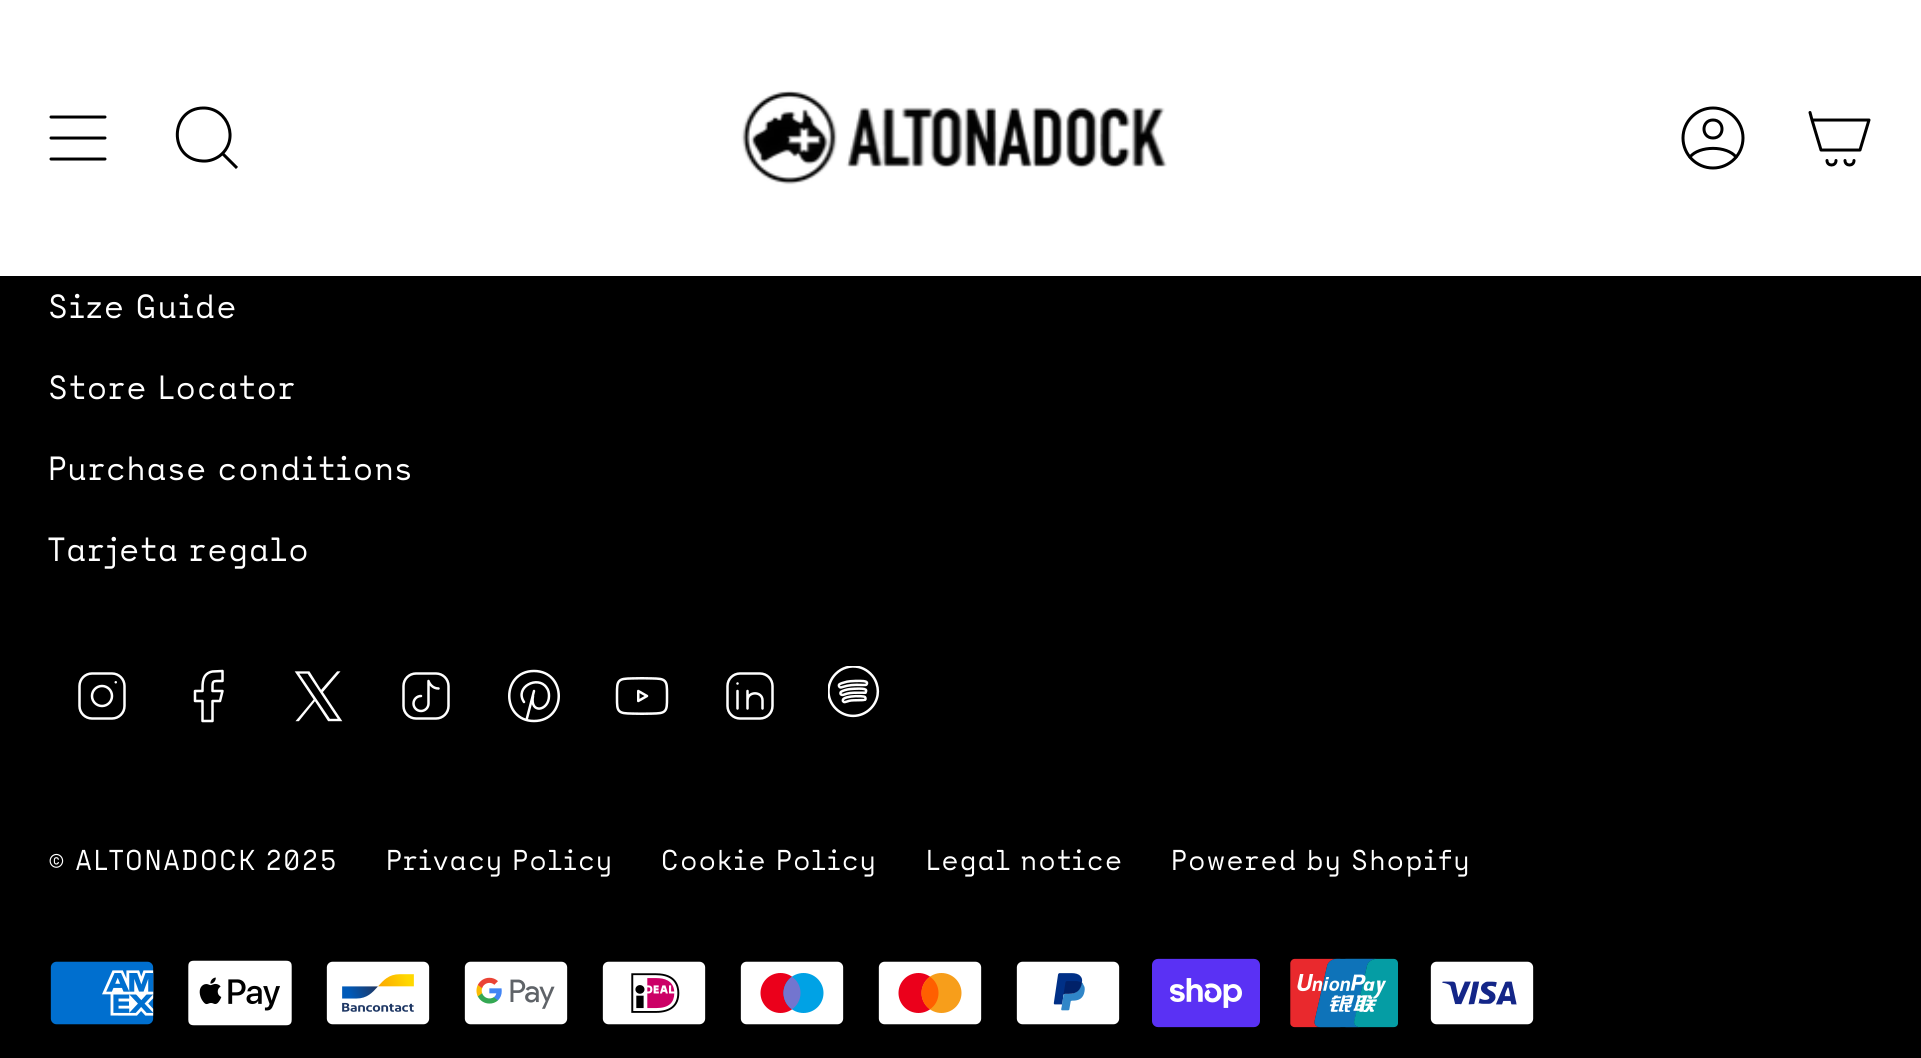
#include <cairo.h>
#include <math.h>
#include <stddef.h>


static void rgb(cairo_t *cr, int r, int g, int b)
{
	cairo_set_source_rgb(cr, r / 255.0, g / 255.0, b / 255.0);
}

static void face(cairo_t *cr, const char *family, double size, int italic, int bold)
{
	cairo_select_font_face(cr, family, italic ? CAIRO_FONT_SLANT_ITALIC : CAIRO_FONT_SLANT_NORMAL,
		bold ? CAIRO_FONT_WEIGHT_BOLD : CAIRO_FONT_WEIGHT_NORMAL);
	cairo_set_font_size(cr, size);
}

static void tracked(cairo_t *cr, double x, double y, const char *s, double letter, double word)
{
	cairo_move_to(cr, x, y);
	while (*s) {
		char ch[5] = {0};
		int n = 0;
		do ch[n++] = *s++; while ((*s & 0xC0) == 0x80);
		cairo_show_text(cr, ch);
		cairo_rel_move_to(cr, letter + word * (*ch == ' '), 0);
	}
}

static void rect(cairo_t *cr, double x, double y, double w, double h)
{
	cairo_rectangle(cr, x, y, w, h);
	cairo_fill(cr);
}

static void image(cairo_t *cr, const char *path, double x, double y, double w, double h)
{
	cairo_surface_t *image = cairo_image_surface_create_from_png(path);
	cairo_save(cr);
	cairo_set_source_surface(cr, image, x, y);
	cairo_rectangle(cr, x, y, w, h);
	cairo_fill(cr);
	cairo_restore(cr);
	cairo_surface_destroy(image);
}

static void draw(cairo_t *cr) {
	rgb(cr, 0, 0, 0);
	cairo_paint(cr);
	rgb(cr, 255, 255, 255);
	rect(cr, 0, 0, 1921, 276);
	cairo_new_path(cr);
	cairo_move_to(cr, 51, 117);
	cairo_line_to(cr, 105, 117);
	cairo_move_to(cr, 51, 138);
	cairo_line_to(cr, 105, 138);
	cairo_move_to(cr, 51, 159);
	cairo_line_to(cr, 105, 159);
	rgb(cr, 0, 0, 0);
	cairo_set_line_width(cr, 3);
	cairo_set_line_cap(cr, CAIRO_LINE_CAP_ROUND);
	cairo_set_line_join(cr, CAIRO_LINE_JOIN_ROUND);
	cairo_stroke(cr);
	cairo_new_path(cr);
	cairo_move_to(cr, 203.5, 108);
	cairo_curve_to(cr, 228.5, 108, 240, 140.5, 219.5, 156);
	cairo_curve_to(cr, 214.5, 159.5, 208.5, 161.5, 202.5, 161);
	cairo_curve_to(cr, 168, 159.5, 169.5, 108, 203.5, 108);
	cairo_close_path(cr);
	cairo_move_to(cr, 222.5, 153.5);
	cairo_line_to(cr, 237, 168);
	cairo_set_line_cap(cr, CAIRO_LINE_CAP_BUTT);
	cairo_set_line_join(cr, CAIRO_LINE_JOIN_MITER);
	cairo_stroke(cr);
	image(cr, "image0.png", 741, 90, 426, 95);
	cairo_new_path(cr);
	cairo_move_to(cr, 1713, 108);
	cairo_curve_to(cr, 1696.5, 108, 1683, 121.5, 1683, 138);
	cairo_curve_to(cr, 1683, 154.5, 1696.5, 168, 1713, 168);
	cairo_curve_to(cr, 1729.5, 168, 1743, 154.5, 1743, 138);
	cairo_curve_to(cr, 1743, 121.5, 1729.5, 108, 1713, 108);
	cairo_close_path(cr);
	cairo_set_line_cap(cr, CAIRO_LINE_CAP_ROUND);
	cairo_set_line_join(cr, CAIRO_LINE_JOIN_ROUND);
	cairo_stroke(cr);
	cairo_new_path(cr);
	cairo_move_to(cr, 1690, 157);
	cairo_curve_to(cr, 1699, 145.5, 1727, 145.5, 1736, 157);
	cairo_move_to(cr, 1713, 138);
	cairo_curve_to(cr, 1725, 138, 1725, 120, 1713, 120);
	cairo_curve_to(cr, 1701, 120, 1701, 138, 1713, 138);
	cairo_close_path(cr);
	cairo_stroke(cr);
	cairo_new_path(cr);
	cairo_move_to(cr, 1812, 120);
	cairo_line_to(cr, 1869, 120);
	cairo_line_to(cr, 1860, 150);
	cairo_line_to(cr, 1821, 150);
	cairo_close_path(cr);
	cairo_move_to(cr, 1812, 120);
	cairo_line_to(cr, 1810, 112.5);
	cairo_move_to(cr, 1836, 160.5);
	cairo_curve_to(cr, 1836, 166.5, 1827, 166.5, 1827, 160.5);
	cairo_move_to(cr, 1854, 160.5);
	cairo_curve_to(cr, 1854, 166.5, 1845, 166.5, 1845, 160.5);
	cairo_stroke(cr);
	face(cr, "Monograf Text", 33.6, 0, 0);
	rgb(cr, 255, 255, 255);
	tracked(cr, 48, 318, "Size Guide", 1.7, 0);
	tracked(cr, 48, 399, "Store Locator", 1.7, 0);
	tracked(cr, 48, 480, "Purchase conditions", 1.7, 0);
	tracked(cr, 48, 561, "Tarjeta regalo", 1.7, 0);
	image(cr, "image1.png", 78, 672, 48, 48);
	cairo_new_path(cr);
	cairo_move_to(cr, 222.5, 671);
	cairo_line_to(cr, 212.5, 671.5);
	cairo_curve_to(cr, 202, 673.5, 202.5, 683, 202.5, 691);
	cairo_line_to(cr, 195, 691);
	cairo_line_to(cr, 195, 701);
	cairo_line_to(cr, 202.5, 701);
	cairo_line_to(cr, 202.5, 721);
	cairo_line_to(cr, 212.5, 721);
	cairo_line_to(cr, 212.5, 701);
	cairo_line_to(cr, 220, 701);
	cairo_line_to(cr, 222.5, 691);
	cairo_line_to(cr, 212.5, 691);
	cairo_curve_to(cr, 212.5, 680, 211.5, 681, 222.5, 681);
	cairo_close_path(cr);
	cairo_set_line_width(cr, 2.5);
	cairo_stroke(cr);
	cairo_new_path(cr);
	cairo_move_to(cr, 309, 672);
	cairo_line_to(cr, 321, 691);
	cairo_line_to(cr, 337.5, 672);
	cairo_line_to(cr, 339, 672);
	cairo_line_to(cr, 322, 692);
	cairo_line_to(cr, 341, 720.5);
	cairo_line_to(cr, 328.5, 720.5);
	cairo_line_to(cr, 315, 700);
	cairo_line_to(cr, 298.5, 720.5);
	cairo_line_to(cr, 297, 720.5);
	cairo_line_to(cr, 314.5, 699.5);
	cairo_line_to(cr, 296, 672);
	cairo_close_path(cr);
	cairo_move_to(cr, 308, 673);
	cairo_line_to(cr, 298, 673);
	cairo_line_to(cr, 329.5, 719.5);
	cairo_line_to(cr, 339, 719.5);
	cairo_close_path(cr);
	cairo_set_line_width(cr, 1.4);
	cairo_set_line_cap(cr, CAIRO_LINE_CAP_BUTT);
	cairo_set_line_join(cr, CAIRO_LINE_JOIN_MITER);
	cairo_stroke(cr);
	image(cr, "image2.png", 402, 672, 48, 48);
	cairo_new_path(cr);
	cairo_move_to(cr, 524, 702);
	cairo_curve_to(cr, 514, 687, 538, 675, 546.5, 687.5);
	cairo_curve_to(cr, 548.5, 690, 549, 693, 549, 696);
	cairo_curve_to(cr, 549, 711, 529.5, 714.5, 533, 696);
	cairo_move_to(cr, 534, 691);
	cairo_line_to(cr, 526.5, 720);
	cairo_move_to(cr, 534, 721);
	cairo_curve_to(cr, 567, 721, 567, 671, 534, 671);
	cairo_curve_to(cr, 501, 671, 501, 721, 534, 721);
	cairo_close_path(cr);
	cairo_set_line_width(cr, 2.5);
	cairo_set_line_cap(cr, CAIRO_LINE_CAP_ROUND);
	cairo_set_line_join(cr, CAIRO_LINE_JOIN_ROUND);
	cairo_stroke(cr);
	image(cr, "image3.png", 615, 677, 54, 38);
	image(cr, "image4.png", 726, 672, 48, 48);
	image(cr, "image5.png", 828, 666, 52, 52);
	face(cr, "Monograf Text", 28.75, 0, 0);
	tracked(cr, 48, 870, "© ALTONADOCK 2025", 1.7, 0);
	tracked(cr, 386, 870, "Privacy Policy", 1.7, 0);
	tracked(cr, 661, 870, "Cookie Policy", 1.7, 0);
	tracked(cr, 926, 870, "Legal notice", 1.7, 0);
	tracked(cr, 1171, 870, "Powered by Shopify", 1.7, 0);
	image(cr, "image6.png", 50, 961, 104, 64);
	image(cr, "image7.png", 188, 960, 104, 66);
	image(cr, "image8.png", 326, 961, 104, 64);
	image(cr, "image9.png", 464, 961, 104, 64);
	image(cr, "image10.png", 602, 961, 104, 64);
	image(cr, "image11.png", 740, 961, 104, 64);
	image(cr, "image12.png", 878, 961, 104, 64);
	image(cr, "image13.png", 1016, 961, 104, 64);
	image(cr, "image14.png", 1152, 958, 108, 70);
	image(cr, "image15.png", 1290, 958, 108, 70);
	image(cr, "image16.png", 1430, 961, 104, 64);
}

int main(void) {
	cairo_surface_t *surface = cairo_image_surface_create(CAIRO_FORMAT_RGB24, 1921, 1058);
	cairo_t *cr = cairo_create(surface);
	cairo_font_options_t *options = cairo_font_options_create();
	cairo_font_options_set_hint_metrics(options, CAIRO_HINT_METRICS_OFF);
	cairo_font_options_set_hint_style(options, CAIRO_HINT_STYLE_NONE);
	cairo_set_font_options(cr, options);
	cairo_set_miter_limit(cr, 4);
	draw(cr);
	cairo_surface_write_to_png(surface, "render.png");
	cairo_font_options_destroy(options);
	cairo_destroy(cr);
	cairo_surface_destroy(surface);
	return 0;
}
